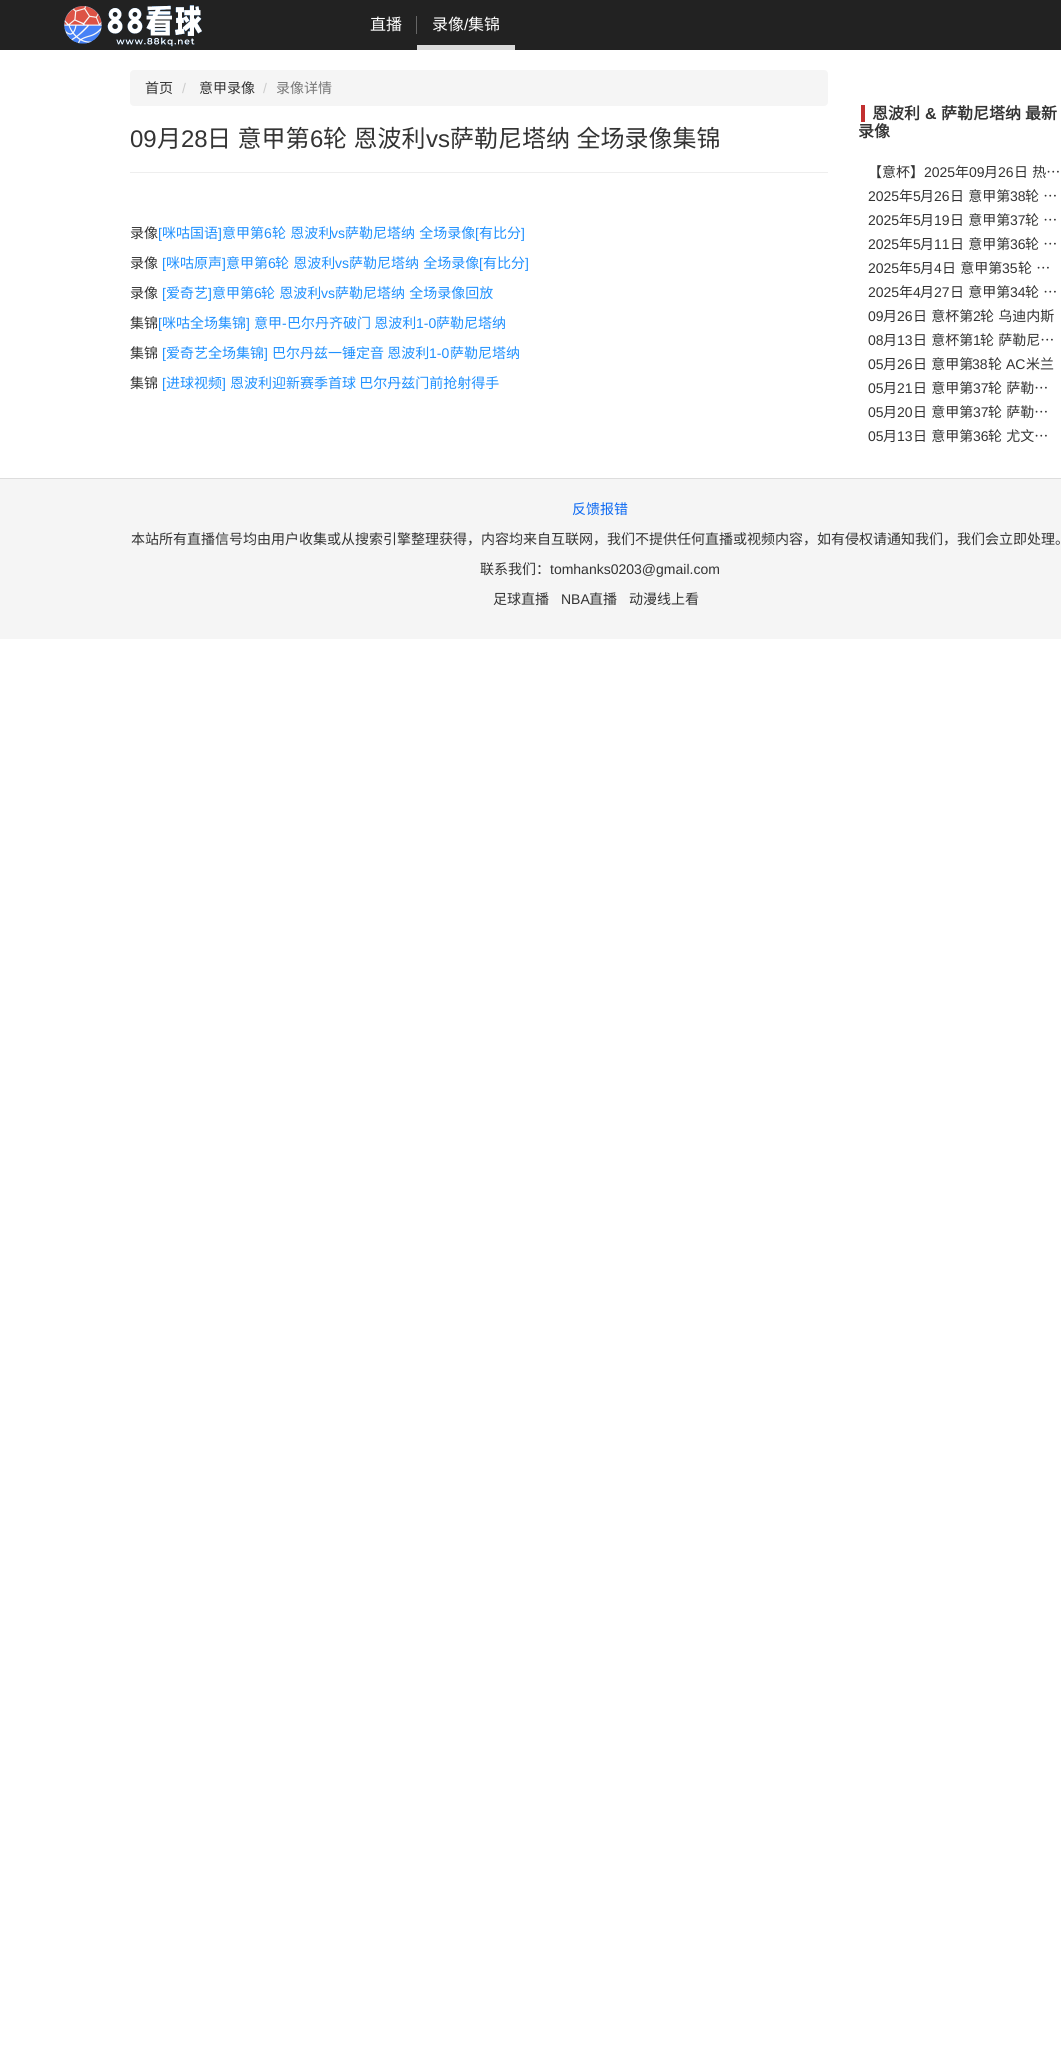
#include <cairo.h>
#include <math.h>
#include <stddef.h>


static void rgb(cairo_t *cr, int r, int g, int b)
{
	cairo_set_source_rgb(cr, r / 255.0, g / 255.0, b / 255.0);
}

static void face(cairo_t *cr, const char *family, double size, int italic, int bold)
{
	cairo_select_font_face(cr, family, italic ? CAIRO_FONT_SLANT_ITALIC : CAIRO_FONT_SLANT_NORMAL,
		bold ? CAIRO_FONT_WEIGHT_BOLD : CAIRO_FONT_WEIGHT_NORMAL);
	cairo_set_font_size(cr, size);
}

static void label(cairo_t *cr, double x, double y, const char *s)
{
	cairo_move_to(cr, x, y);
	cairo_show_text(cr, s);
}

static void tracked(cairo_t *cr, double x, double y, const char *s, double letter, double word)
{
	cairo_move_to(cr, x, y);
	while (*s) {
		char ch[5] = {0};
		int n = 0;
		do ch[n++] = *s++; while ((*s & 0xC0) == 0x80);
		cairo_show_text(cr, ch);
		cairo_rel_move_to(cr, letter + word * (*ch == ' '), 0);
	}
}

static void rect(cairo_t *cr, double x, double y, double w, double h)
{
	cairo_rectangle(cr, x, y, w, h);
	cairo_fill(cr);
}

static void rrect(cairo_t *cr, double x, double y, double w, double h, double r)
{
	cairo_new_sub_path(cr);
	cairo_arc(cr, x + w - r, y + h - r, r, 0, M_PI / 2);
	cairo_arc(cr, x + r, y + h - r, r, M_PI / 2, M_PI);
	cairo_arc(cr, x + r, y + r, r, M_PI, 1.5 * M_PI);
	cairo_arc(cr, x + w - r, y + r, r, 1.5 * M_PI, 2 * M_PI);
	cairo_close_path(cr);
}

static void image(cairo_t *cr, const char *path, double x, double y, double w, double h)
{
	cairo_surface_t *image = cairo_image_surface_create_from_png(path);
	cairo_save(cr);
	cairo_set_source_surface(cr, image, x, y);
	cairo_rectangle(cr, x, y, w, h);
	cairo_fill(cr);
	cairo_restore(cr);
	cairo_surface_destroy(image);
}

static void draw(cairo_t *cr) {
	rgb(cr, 255, 255, 255);
	cairo_paint(cr);
	rgb(cr, 34, 34, 34);
	rect(cr, 0, 0, 1061, 50);
	image(cr, "image0.png", 64, 5, 138, 42);
	face(cr, "Noto Sans CJK SC", 16, 0, 0);
	rgb(cr, 255, 255, 255);
	label(cr, 370, 30, "直播");
	rgb(cr, 102, 102, 102);
	rect(cr, 416, 16, 1, 18);
	rgb(cr, 218, 218, 218);
	rect(cr, 417, 45, 98, 5);
	rgb(cr, 255, 255, 255);
	label(cr, 432, 30, "录像");
	face(cr, "Liberation Sans", 16, 0, 0);
	label(cr, 464, 30, "/");
	face(cr, "Noto Sans CJK SC", 16, 0, 0);
	label(cr, 468, 30, "集锦");
	rgb(cr, 245, 245, 245);
	rrect(cr, 130, 70, 698, 36, 4);
	cairo_fill(cr);
	face(cr, "Noto Sans CJK SC", 14, 0, 0);
	rgb(cr, 51, 51, 51);
	label(cr, 145, 93, "首页");
	face(cr, "Liberation Sans", 14, 0, 0);
	rgb(cr, 204, 204, 204);
	label(cr, 182, 93, "/");
	face(cr, "Noto Sans CJK SC", 14, 0, 0);
	rgb(cr, 51, 51, 51);
	label(cr, 199, 93, "意甲录像");
	face(cr, "Liberation Sans", 14, 0, 0);
	rgb(cr, 204, 204, 204);
	label(cr, 263, 93, "/");
	face(cr, "Noto Sans CJK SC", 14, 0, 0);
	rgb(cr, 119, 119, 119);
	label(cr, 276, 93, "录像详情");
	face(cr, "Liberation Sans", 24, 0, 0);
	rgb(cr, 51, 51, 51);
	label(cr, 130, 147, "09");
	face(cr, "Noto Sans CJK SC", 24, 0, 0);
	label(cr, 157, 147, "月");
	face(cr, "Liberation Sans", 24, 0, 0);
	label(cr, 181, 147, "28");
	face(cr, "Noto Sans CJK SC", 24, 0, 0);
	tracked(cr, 207, 147, "日 意甲第", 0, 1);
	face(cr, "Liberation Sans", 24, 0, 0);
	label(cr, 310, 147, "6");
	face(cr, "Noto Sans CJK SC", 24, 0, 0);
	tracked(cr, 323, 147, "轮 恩波利", 0, 1);
	face(cr, "Liberation Sans", 24, 0, 0);
	label(cr, 426, 147, "vs");
	face(cr, "Noto Sans CJK SC", 24, 0, 0);
	tracked(cr, 450, 147, "萨勒尼塔纳 全场录像集锦", 0, 1);
	rgb(cr, 238, 238, 238);
	rect(cr, 130, 172, 698, 1);
	face(cr, "Noto Sans CJK SC", 14, 0, 0);
	rgb(cr, 51, 51, 51);
	label(cr, 130, 238, "录像");
	face(cr, "Liberation Sans", 14, 0, 0);
	rgb(cr, 30, 144, 255);
	label(cr, 158, 238, "[");
	face(cr, "Noto Sans CJK SC", 14, 0, 0);
	label(cr, 162, 238, "咪咕国语");
	face(cr, "Liberation Sans", 14, 0, 0);
	label(cr, 218, 238, "]");
	face(cr, "Noto Sans CJK SC", 14, 0, 0);
	label(cr, 222, 238, "意甲第");
	face(cr, "Liberation Sans", 14, 0, 0);
	label(cr, 264, 238, "6");
	face(cr, "Noto Sans CJK SC", 14, 0, 0);
	tracked(cr, 272, 238, "轮 恩波利", 0, 1);
	face(cr, "Liberation Sans", 14, 0, 0);
	label(cr, 331, 238, "vs");
	face(cr, "Noto Sans CJK SC", 14, 0, 0);
	tracked(cr, 345, 238, "萨勒尼塔纳 全场录像", 0, 1);
	face(cr, "Liberation Sans", 14, 0, 0);
	label(cr, 475, 238, "[");
	face(cr, "Noto Sans CJK SC", 14, 0, 0);
	label(cr, 479, 238, "有比分");
	face(cr, "Liberation Sans", 14, 0, 0);
	label(cr, 521, 238, "]");
	face(cr, "Noto Sans CJK SC", 14, 0, 0);
	rgb(cr, 51, 51, 51);
	label(cr, 130, 268, "录像");
	face(cr, "Liberation Sans", 14, 0, 0);
	rgb(cr, 30, 144, 255);
	label(cr, 162, 268, "[");
	face(cr, "Noto Sans CJK SC", 14, 0, 0);
	label(cr, 166, 268, "咪咕原声");
	face(cr, "Liberation Sans", 14, 0, 0);
	label(cr, 222, 268, "]");
	face(cr, "Noto Sans CJK SC", 14, 0, 0);
	label(cr, 226, 268, "意甲第");
	face(cr, "Liberation Sans", 14, 0, 0);
	label(cr, 268, 268, "6");
	face(cr, "Noto Sans CJK SC", 14, 0, 0);
	tracked(cr, 275, 268, "轮 恩波利", 0, 1);
	face(cr, "Liberation Sans", 14, 0, 0);
	label(cr, 335, 268, "vs");
	face(cr, "Noto Sans CJK SC", 14, 0, 0);
	tracked(cr, 349, 268, "萨勒尼塔纳 全场录像", 0, 1);
	face(cr, "Liberation Sans", 14, 0, 0);
	label(cr, 479, 268, "[");
	face(cr, "Noto Sans CJK SC", 14, 0, 0);
	label(cr, 483, 268, "有比分");
	face(cr, "Liberation Sans", 14, 0, 0);
	label(cr, 525, 268, "]");
	face(cr, "Noto Sans CJK SC", 14, 0, 0);
	rgb(cr, 51, 51, 51);
	label(cr, 130, 298, "录像");
	face(cr, "Liberation Sans", 14, 0, 0);
	rgb(cr, 30, 144, 255);
	label(cr, 162, 298, "[");
	face(cr, "Noto Sans CJK SC", 14, 0, 0);
	label(cr, 166, 298, "爱奇艺");
	face(cr, "Liberation Sans", 14, 0, 0);
	label(cr, 208, 298, "]");
	face(cr, "Noto Sans CJK SC", 14, 0, 0);
	label(cr, 212, 298, "意甲第");
	face(cr, "Liberation Sans", 14, 0, 0);
	label(cr, 254, 298, "6");
	face(cr, "Noto Sans CJK SC", 14, 0, 0);
	tracked(cr, 261, 298, "轮 恩波利", 0, 1);
	face(cr, "Liberation Sans", 14, 0, 0);
	label(cr, 321, 298, "vs");
	face(cr, "Noto Sans CJK SC", 14, 0, 0);
	tracked(cr, 335, 298, "萨勒尼塔纳 全场录像回放", 0, 1);
	rgb(cr, 51, 51, 51);
	label(cr, 130, 328, "集锦");
	face(cr, "Liberation Sans", 14, 0, 0);
	rgb(cr, 30, 144, 255);
	label(cr, 158, 328, "[");
	face(cr, "Noto Sans CJK SC", 14, 0, 0);
	label(cr, 162, 328, "咪咕全场集锦");
	face(cr, "Liberation Sans", 14, 0, 0);
	label(cr, 246, 328, "]");
	face(cr, "Noto Sans CJK SC", 14, 0, 0);
	label(cr, 254, 328, "意甲");
	face(cr, "Liberation Sans", 14, 0, 0);
	label(cr, 282, 328, "-");
	face(cr, "Noto Sans CJK SC", 14, 0, 0);
	label(cr, 287, 328, "巴尔丹齐破门 恩波利");
	face(cr, "Liberation Sans", 14, 0, 0);
	label(cr, 416, 328, "1-0");
	face(cr, "Noto Sans CJK SC", 14, 0, 0);
	label(cr, 436, 328, "萨勒尼塔纳");
	rgb(cr, 51, 51, 51);
	label(cr, 130, 358, "集锦");
	face(cr, "Liberation Sans", 14, 0, 0);
	rgb(cr, 30, 144, 255);
	label(cr, 162, 358, "[");
	face(cr, "Noto Sans CJK SC", 14, 0, 0);
	label(cr, 166, 358, "爱奇艺全场集锦");
	face(cr, "Liberation Sans", 14, 0, 0);
	label(cr, 264, 358, "]");
	face(cr, "Noto Sans CJK SC", 14, 0, 0);
	label(cr, 272, 358, "巴尔丹兹一锤定音 恩波利");
	face(cr, "Liberation Sans", 14, 0, 0);
	label(cr, 429, 358, "1-0");
	face(cr, "Noto Sans CJK SC", 14, 0, 0);
	label(cr, 450, 358, "萨勒尼塔纳");
	rgb(cr, 51, 51, 51);
	label(cr, 130, 388, "集锦");
	face(cr, "Liberation Sans", 14, 0, 0);
	rgb(cr, 30, 144, 255);
	label(cr, 162, 388, "[");
	face(cr, "Noto Sans CJK SC", 14, 0, 0);
	label(cr, 166, 388, "进球视频");
	face(cr, "Liberation Sans", 14, 0, 0);
	label(cr, 222, 388, "]");
	face(cr, "Noto Sans CJK SC", 14, 0, 0);
	label(cr, 230, 388, "恩波利迎新赛季首球 巴尔丹兹门前抢射得手");
	rgb(cr, 194, 48, 48);
	rect(cr, 861, 105, 4, 17);
	face(cr, "Noto Sans CJK SC", 16, 0, 1);
	rgb(cr, 51, 51, 51);
	label(cr, 872, 119, "恩波利");
	face(cr, "Liberation Sans", 16, 0, 1);
	label(cr, 925, 119, "&");
	face(cr, "Noto Sans CJK SC", 16, 0, 1);
	label(cr, 941, 119, "萨勒尼塔纳");
	label(cr, 1025, 119, "最新");
	label(cr, 858, 137, "录像");
	face(cr, "Noto Sans CJK SC", 14, 0, 0);
	label(cr, 868, 177, "【意杯】");
	face(cr, "Liberation Sans", 14, 0, 0);
	label(cr, 924, 177, "2025");
	face(cr, "Noto Sans CJK SC", 14, 0, 0);
	label(cr, 955, 177, "年");
	face(cr, "Liberation Sans", 14, 0, 0);
	label(cr, 969, 177, "09");
	face(cr, "Noto Sans CJK SC", 14, 0, 0);
	label(cr, 984, 177, "月");
	face(cr, "Liberation Sans", 14, 0, 0);
	label(cr, 998, 177, "26");
	face(cr, "Noto Sans CJK SC", 14, 0, 0);
	tracked(cr, 1014, 177, "日 热…", 0, 1);
	face(cr, "Liberation Sans", 14, 0, 0);
	label(cr, 868, 201, "2025");
	face(cr, "Noto Sans CJK SC", 14, 0, 0);
	label(cr, 899, 201, "年");
	face(cr, "Liberation Sans", 14, 0, 0);
	label(cr, 913, 201, "5");
	face(cr, "Noto Sans CJK SC", 14, 0, 0);
	label(cr, 920, 201, "月");
	face(cr, "Liberation Sans", 14, 0, 0);
	label(cr, 934, 201, "26");
	face(cr, "Noto Sans CJK SC", 14, 0, 0);
	tracked(cr, 950, 201, "日 意甲第", 0, 1);
	face(cr, "Liberation Sans", 14, 0, 0);
	label(cr, 1010, 201, "38");
	face(cr, "Noto Sans CJK SC", 14, 0, 0);
	tracked(cr, 1025, 201, "轮 …", 0, 1);
	face(cr, "Liberation Sans", 14, 0, 0);
	label(cr, 868, 225, "2025");
	face(cr, "Noto Sans CJK SC", 14, 0, 0);
	label(cr, 899, 225, "年");
	face(cr, "Liberation Sans", 14, 0, 0);
	label(cr, 913, 225, "5");
	face(cr, "Noto Sans CJK SC", 14, 0, 0);
	label(cr, 920, 225, "月");
	face(cr, "Liberation Sans", 14, 0, 0);
	label(cr, 934, 225, "19");
	face(cr, "Noto Sans CJK SC", 14, 0, 0);
	tracked(cr, 950, 225, "日 意甲第", 0, 1);
	face(cr, "Liberation Sans", 14, 0, 0);
	label(cr, 1010, 225, "37");
	face(cr, "Noto Sans CJK SC", 14, 0, 0);
	tracked(cr, 1025, 225, "轮 …", 0, 1);
	face(cr, "Liberation Sans", 14, 0, 0);
	label(cr, 868, 249, "2025");
	face(cr, "Noto Sans CJK SC", 14, 0, 0);
	label(cr, 899, 249, "年");
	face(cr, "Liberation Sans", 14, 0, 0);
	label(cr, 913, 249, "5");
	face(cr, "Noto Sans CJK SC", 14, 0, 0);
	label(cr, 920, 249, "月");
	face(cr, "Liberation Sans", 14, 0, 0);
	label(cr, 934, 249, "11");
	face(cr, "Noto Sans CJK SC", 14, 0, 0);
	tracked(cr, 950, 249, "日 意甲第", 0, 1);
	face(cr, "Liberation Sans", 14, 0, 0);
	label(cr, 1010, 249, "36");
	face(cr, "Noto Sans CJK SC", 14, 0, 0);
	tracked(cr, 1025, 249, "轮 …", 0, 1);
	face(cr, "Liberation Sans", 14, 0, 0);
	label(cr, 868, 273, "2025");
	face(cr, "Noto Sans CJK SC", 14, 0, 0);
	label(cr, 899, 273, "年");
	face(cr, "Liberation Sans", 14, 0, 0);
	label(cr, 913, 273, "5");
	face(cr, "Noto Sans CJK SC", 14, 0, 0);
	label(cr, 920, 273, "月");
	face(cr, "Liberation Sans", 14, 0, 0);
	label(cr, 934, 273, "4");
	face(cr, "Noto Sans CJK SC", 14, 0, 0);
	tracked(cr, 942, 273, "日 意甲第", 0, 1);
	face(cr, "Liberation Sans", 14, 0, 0);
	label(cr, 1002, 273, "35");
	face(cr, "Noto Sans CJK SC", 14, 0, 0);
	tracked(cr, 1018, 273, "轮 …", 0, 1);
	face(cr, "Liberation Sans", 14, 0, 0);
	label(cr, 868, 297, "2025");
	face(cr, "Noto Sans CJK SC", 14, 0, 0);
	label(cr, 899, 297, "年");
	face(cr, "Liberation Sans", 14, 0, 0);
	label(cr, 913, 297, "4");
	face(cr, "Noto Sans CJK SC", 14, 0, 0);
	label(cr, 920, 297, "月");
	face(cr, "Liberation Sans", 14, 0, 0);
	label(cr, 934, 297, "27");
	face(cr, "Noto Sans CJK SC", 14, 0, 0);
	tracked(cr, 950, 297, "日 意甲第", 0, 1);
	face(cr, "Liberation Sans", 14, 0, 0);
	label(cr, 1010, 297, "34");
	face(cr, "Noto Sans CJK SC", 14, 0, 0);
	tracked(cr, 1025, 297, "轮 …", 0, 1);
	face(cr, "Liberation Sans", 14, 0, 0);
	label(cr, 868, 321, "09");
	face(cr, "Noto Sans CJK SC", 14, 0, 0);
	label(cr, 883, 321, "月");
	face(cr, "Liberation Sans", 14, 0, 0);
	label(cr, 897, 321, "26");
	face(cr, "Noto Sans CJK SC", 14, 0, 0);
	tracked(cr, 913, 321, "日 意杯第", 0, 1);
	face(cr, "Liberation Sans", 14, 0, 0);
	label(cr, 973, 321, "2");
	face(cr, "Noto Sans CJK SC", 14, 0, 0);
	tracked(cr, 980, 321, "轮 乌迪内斯", 0, 1);
	face(cr, "Liberation Sans", 14, 0, 0);
	label(cr, 868, 345, "08");
	face(cr, "Noto Sans CJK SC", 14, 0, 0);
	label(cr, 883, 345, "月");
	face(cr, "Liberation Sans", 14, 0, 0);
	label(cr, 897, 345, "13");
	face(cr, "Noto Sans CJK SC", 14, 0, 0);
	tracked(cr, 913, 345, "日 意杯第", 0, 1);
	face(cr, "Liberation Sans", 14, 0, 0);
	label(cr, 973, 345, "1");
	face(cr, "Noto Sans CJK SC", 14, 0, 0);
	tracked(cr, 980, 345, "轮 萨勒尼…", 0, 1);
	face(cr, "Liberation Sans", 14, 0, 0);
	label(cr, 868, 369, "05");
	face(cr, "Noto Sans CJK SC", 14, 0, 0);
	label(cr, 883, 369, "月");
	face(cr, "Liberation Sans", 14, 0, 0);
	label(cr, 897, 369, "26");
	face(cr, "Noto Sans CJK SC", 14, 0, 0);
	tracked(cr, 913, 369, "日 意甲第", 0, 1);
	face(cr, "Liberation Sans", 14, 0, 0);
	label(cr, 972, 369, "38");
	face(cr, "Noto Sans CJK SC", 14, 0, 0);
	label(cr, 988, 369, "轮");
	face(cr, "Liberation Sans", 14, 0, 0);
	label(cr, 1006, 369, "AC");
	face(cr, "Noto Sans CJK SC", 14, 0, 0);
	label(cr, 1026, 369, "米兰");
	face(cr, "Liberation Sans", 14, 0, 0);
	label(cr, 868, 393, "05");
	face(cr, "Noto Sans CJK SC", 14, 0, 0);
	label(cr, 883, 393, "月");
	face(cr, "Liberation Sans", 14, 0, 0);
	label(cr, 897, 393, "21");
	face(cr, "Noto Sans CJK SC", 14, 0, 0);
	tracked(cr, 913, 393, "日 意甲第", 0, 1);
	face(cr, "Liberation Sans", 14, 0, 0);
	label(cr, 973, 393, "37");
	face(cr, "Noto Sans CJK SC", 14, 0, 0);
	tracked(cr, 988, 393, "轮 萨勒…", 0, 1);
	face(cr, "Liberation Sans", 14, 0, 0);
	label(cr, 868, 417, "05");
	face(cr, "Noto Sans CJK SC", 14, 0, 0);
	label(cr, 883, 417, "月");
	face(cr, "Liberation Sans", 14, 0, 0);
	label(cr, 897, 417, "20");
	face(cr, "Noto Sans CJK SC", 14, 0, 0);
	tracked(cr, 913, 417, "日 意甲第", 0, 1);
	face(cr, "Liberation Sans", 14, 0, 0);
	label(cr, 973, 417, "37");
	face(cr, "Noto Sans CJK SC", 14, 0, 0);
	tracked(cr, 988, 417, "轮 萨勒…", 0, 1);
	face(cr, "Liberation Sans", 14, 0, 0);
	label(cr, 868, 441, "05");
	face(cr, "Noto Sans CJK SC", 14, 0, 0);
	label(cr, 883, 441, "月");
	face(cr, "Liberation Sans", 14, 0, 0);
	label(cr, 897, 441, "13");
	face(cr, "Noto Sans CJK SC", 14, 0, 0);
	tracked(cr, 913, 441, "日 意甲第", 0, 1);
	face(cr, "Liberation Sans", 14, 0, 0);
	label(cr, 973, 441, "36");
	face(cr, "Noto Sans CJK SC", 14, 0, 0);
	tracked(cr, 988, 441, "轮 尤文…", 0, 1);
	rgb(cr, 245, 245, 245);
	rect(cr, 0, 479, 1061, 160);
	rgb(cr, 221, 221, 221);
	rect(cr, 0, 478, 1061, 1);
	rgb(cr, 12, 105, 242);
	label(cr, 572, 514, "反馈报错");
	rgb(cr, 51, 51, 51);
	label(cr, 131, 544, "本站所有直播信号均由用户收集或从搜索引擎整理获得，内容均来自互联网，我们不提供任何直播或视频内容，如有侵权请通知我们，我们会立即处理。");
	label(cr, 480, 574, "联系我们：");
	face(cr, "Liberation Sans", 14, 0, 0);
	label(cr, 550, 574, "tomhanks0203@gmail.com");
	face(cr, "Noto Sans CJK SC", 14, 0, 0);
	label(cr, 493, 604, "足球直播");
	face(cr, "Liberation Sans", 14, 0, 0);
	label(cr, 561, 604, "NBA");
	face(cr, "Noto Sans CJK SC", 14, 0, 0);
	label(cr, 589, 604, "直播");
	label(cr, 629, 604, "动漫线上看");
}

int main(void) {
	cairo_surface_t *surface = cairo_image_surface_create(CAIRO_FORMAT_RGB24, 1061, 2061);
	cairo_t *cr = cairo_create(surface);
	cairo_font_options_t *options = cairo_font_options_create();
	cairo_font_options_set_hint_metrics(options, CAIRO_HINT_METRICS_OFF);
	cairo_font_options_set_hint_style(options, CAIRO_HINT_STYLE_NONE);
	cairo_set_font_options(cr, options);
	cairo_set_miter_limit(cr, 4);
	draw(cr);
	cairo_surface_write_to_png(surface, "render.png");
	cairo_font_options_destroy(options);
	cairo_destroy(cr);
	cairo_surface_destroy(surface);
	return 0;
}
